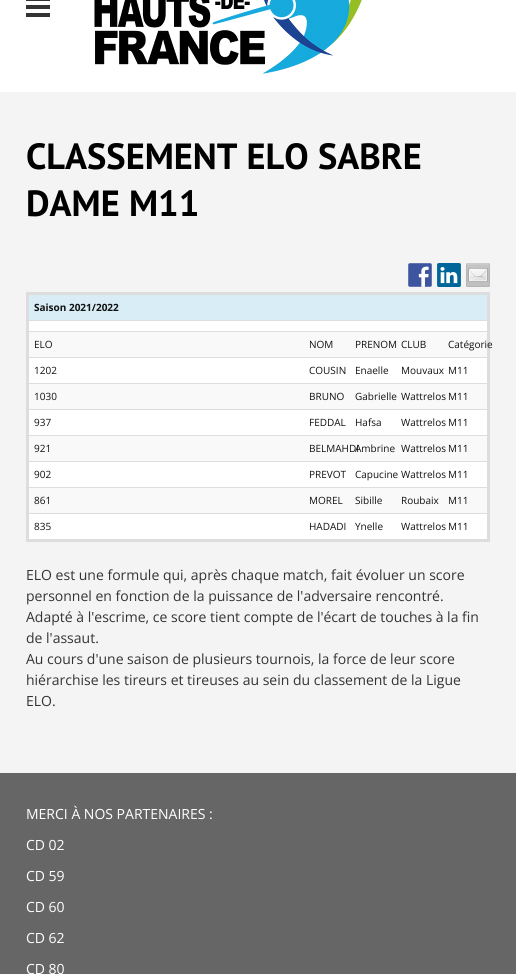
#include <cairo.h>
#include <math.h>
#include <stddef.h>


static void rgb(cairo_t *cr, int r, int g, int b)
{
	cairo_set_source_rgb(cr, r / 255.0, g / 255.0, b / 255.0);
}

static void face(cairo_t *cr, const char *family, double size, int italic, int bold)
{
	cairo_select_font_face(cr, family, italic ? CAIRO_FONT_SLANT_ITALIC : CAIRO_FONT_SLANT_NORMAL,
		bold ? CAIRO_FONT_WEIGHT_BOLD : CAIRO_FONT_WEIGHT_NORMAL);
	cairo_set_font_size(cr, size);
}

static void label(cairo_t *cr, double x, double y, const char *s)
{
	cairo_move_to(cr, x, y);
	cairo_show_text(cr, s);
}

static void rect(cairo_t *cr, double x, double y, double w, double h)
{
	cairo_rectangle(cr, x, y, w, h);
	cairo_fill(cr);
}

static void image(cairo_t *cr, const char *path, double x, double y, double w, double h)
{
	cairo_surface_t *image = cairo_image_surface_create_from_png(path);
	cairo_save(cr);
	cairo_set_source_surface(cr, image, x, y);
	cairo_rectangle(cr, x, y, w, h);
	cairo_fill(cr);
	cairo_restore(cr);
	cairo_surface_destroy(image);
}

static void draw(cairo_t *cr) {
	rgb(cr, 255, 255, 255);
	cairo_paint(cr);
	rgb(cr, 51, 51, 51);
	rect(cr, 26, 0, 24, 1);
	rect(cr, 26, 5, 24, 4);
	rect(cr, 26, 13, 24, 4);
	image(cr, "image0.png", 94, 0, 268, 74);
	rgb(cr, 244, 244, 244);
	rect(cr, 0, 92, 516, 681);
	face(cr, "PT Sans", 36.4, 0, 1);
	rgb(cr, 0, 0, 0);
	label(cr, 26, 169, "CLASSEMENT ELO SABRE");
	label(cr, 26, 216, "DAME M11");
	image(cr, "image1.png", 408, 263, 24, 24);
	image(cr, "image2.png", 437, 263, 24, 24);
	image(cr, "image3.png", 466, 263, 24, 24);
	rgb(cr, 221, 221, 221);
	rect(cr, 26, 292, 464, 3);
	rect(cr, 27, 320, 462, 1);
	rect(cr, 27, 331, 462, 1);
	rect(cr, 27, 357, 462, 1);
	rect(cr, 27, 383, 462, 1);
	rect(cr, 27, 409, 462, 1);
	rect(cr, 27, 435, 462, 1);
	rect(cr, 27, 461, 462, 1);
	rect(cr, 27, 487, 462, 1);
	rect(cr, 27, 513, 462, 1);
	rect(cr, 487, 292, 3, 250);
	rect(cr, 26, 539, 464, 3);
	rect(cr, 26, 292, 3, 250);
	rgb(cr, 217, 237, 247);
	rect(cr, 29, 295, 458, 25);
	face(cr, "Open Sans", 10, 0, 1);
	rgb(cr, 17, 17, 17);
	label(cr, 34, 311, "Saison 2021/2022");
	rgb(cr, 255, 255, 255);
	rect(cr, 29, 321, 458, 10);
	rgb(cr, 249, 249, 249);
	rect(cr, 29, 332, 458, 25);
	face(cr, "Open Sans", 10, 0, 0);
	rgb(cr, 17, 17, 17);
	label(cr, 34, 348, "ELO");
	label(cr, 309, 348, "NOM");
	label(cr, 355, 348, "PRENOM");
	label(cr, 401, 348, "CLUB");
	label(cr, 448, 348, "Catégorie");
	rgb(cr, 255, 255, 255);
	rect(cr, 29, 358, 458, 25);
	rgb(cr, 17, 17, 17);
	label(cr, 34, 374, "1202");
	label(cr, 309, 374, "COUSIN");
	label(cr, 355, 374, "Enaelle");
	label(cr, 401, 374, "Mouvaux");
	label(cr, 448, 374, "M11");
	rgb(cr, 249, 249, 249);
	rect(cr, 29, 384, 458, 25);
	rgb(cr, 17, 17, 17);
	label(cr, 34, 400, "1030");
	label(cr, 309, 400, "BRUNO");
	label(cr, 355, 400, "Gabrielle");
	label(cr, 401, 400, "Wattrelos");
	label(cr, 448, 400, "M11");
	rgb(cr, 255, 255, 255);
	rect(cr, 29, 410, 458, 25);
	rgb(cr, 17, 17, 17);
	label(cr, 34, 426, "937");
	label(cr, 309, 426, "FEDDAL");
	label(cr, 355, 426, "Hafsa");
	label(cr, 401, 426, "Wattrelos");
	label(cr, 448, 426, "M11");
	rgb(cr, 249, 249, 249);
	rect(cr, 29, 436, 458, 25);
	rgb(cr, 17, 17, 17);
	label(cr, 34, 452, "921");
	label(cr, 309, 452, "BELMAHDI");
	label(cr, 355, 452, "Ambrine");
	label(cr, 401, 452, "Wattrelos");
	label(cr, 448, 452, "M11");
	rgb(cr, 255, 255, 255);
	rect(cr, 29, 462, 458, 25);
	rgb(cr, 17, 17, 17);
	label(cr, 34, 478, "902");
	label(cr, 309, 478, "PREVOT");
	label(cr, 355, 478, "Capucine");
	label(cr, 401, 478, "Wattrelos");
	label(cr, 448, 478, "M11");
	rgb(cr, 249, 249, 249);
	rect(cr, 29, 488, 458, 25);
	rgb(cr, 17, 17, 17);
	label(cr, 34, 504, "861");
	label(cr, 309, 504, "MOREL");
	label(cr, 355, 504, "Sibille");
	label(cr, 401, 504, "Roubaix");
	label(cr, 448, 504, "M11");
	rgb(cr, 255, 255, 255);
	rect(cr, 29, 514, 458, 25);
	rgb(cr, 17, 17, 17);
	label(cr, 34, 530, "835");
	label(cr, 309, 530, "HADADI");
	label(cr, 355, 530, "Ynelle");
	label(cr, 401, 530, "Wattrelos");
	label(cr, 448, 530, "M11");
	face(cr, "Open Sans", 14, 0, 0);
	rgb(cr, 51, 51, 51);
	label(cr, 26, 580, "ELO est une formule qui, après chaque match, fait évoluer un score");
	label(cr, 26, 601, "personnel en fonction de la puissance de l'adversaire rencontré.");
	label(cr, 26, 622, "Adapté à l'escrime, ce score tient compte de l'écart de touches à la fin");
	label(cr, 26, 643, "de l'assaut.");
	label(cr, 26, 664, "Au cours d'une saison de plusieurs tournois, la force de leur score");
	label(cr, 26, 685, "hiérarchise les tireurs et tireuses au sein du classement de la Ligue");
	label(cr, 26, 706, "ELO.");
	rgb(cr, 102, 102, 102);
	rect(cr, 0, 773, 516, 201);
	rgb(cr, 255, 255, 255);
	label(cr, 26, 819, "MERCI À NOS PARTENAIRES :");
	label(cr, 26, 850, "CD 02");
	label(cr, 26, 881, "CD 59");
	label(cr, 26, 912, "CD 60");
	label(cr, 26, 943, "CD 62");
	label(cr, 26, 974, "CD 80");
}

int main(void) {
	cairo_surface_t *surface = cairo_image_surface_create(CAIRO_FORMAT_RGB24, 516, 974);
	cairo_t *cr = cairo_create(surface);
	cairo_font_options_t *options = cairo_font_options_create();
	cairo_font_options_set_hint_metrics(options, CAIRO_HINT_METRICS_OFF);
	cairo_font_options_set_hint_style(options, CAIRO_HINT_STYLE_NONE);
	cairo_set_font_options(cr, options);
	cairo_set_miter_limit(cr, 4);
	draw(cr);
	cairo_surface_write_to_png(surface, "render.png");
	cairo_font_options_destroy(options);
	cairo_destroy(cr);
	cairo_surface_destroy(surface);
	return 0;
}
